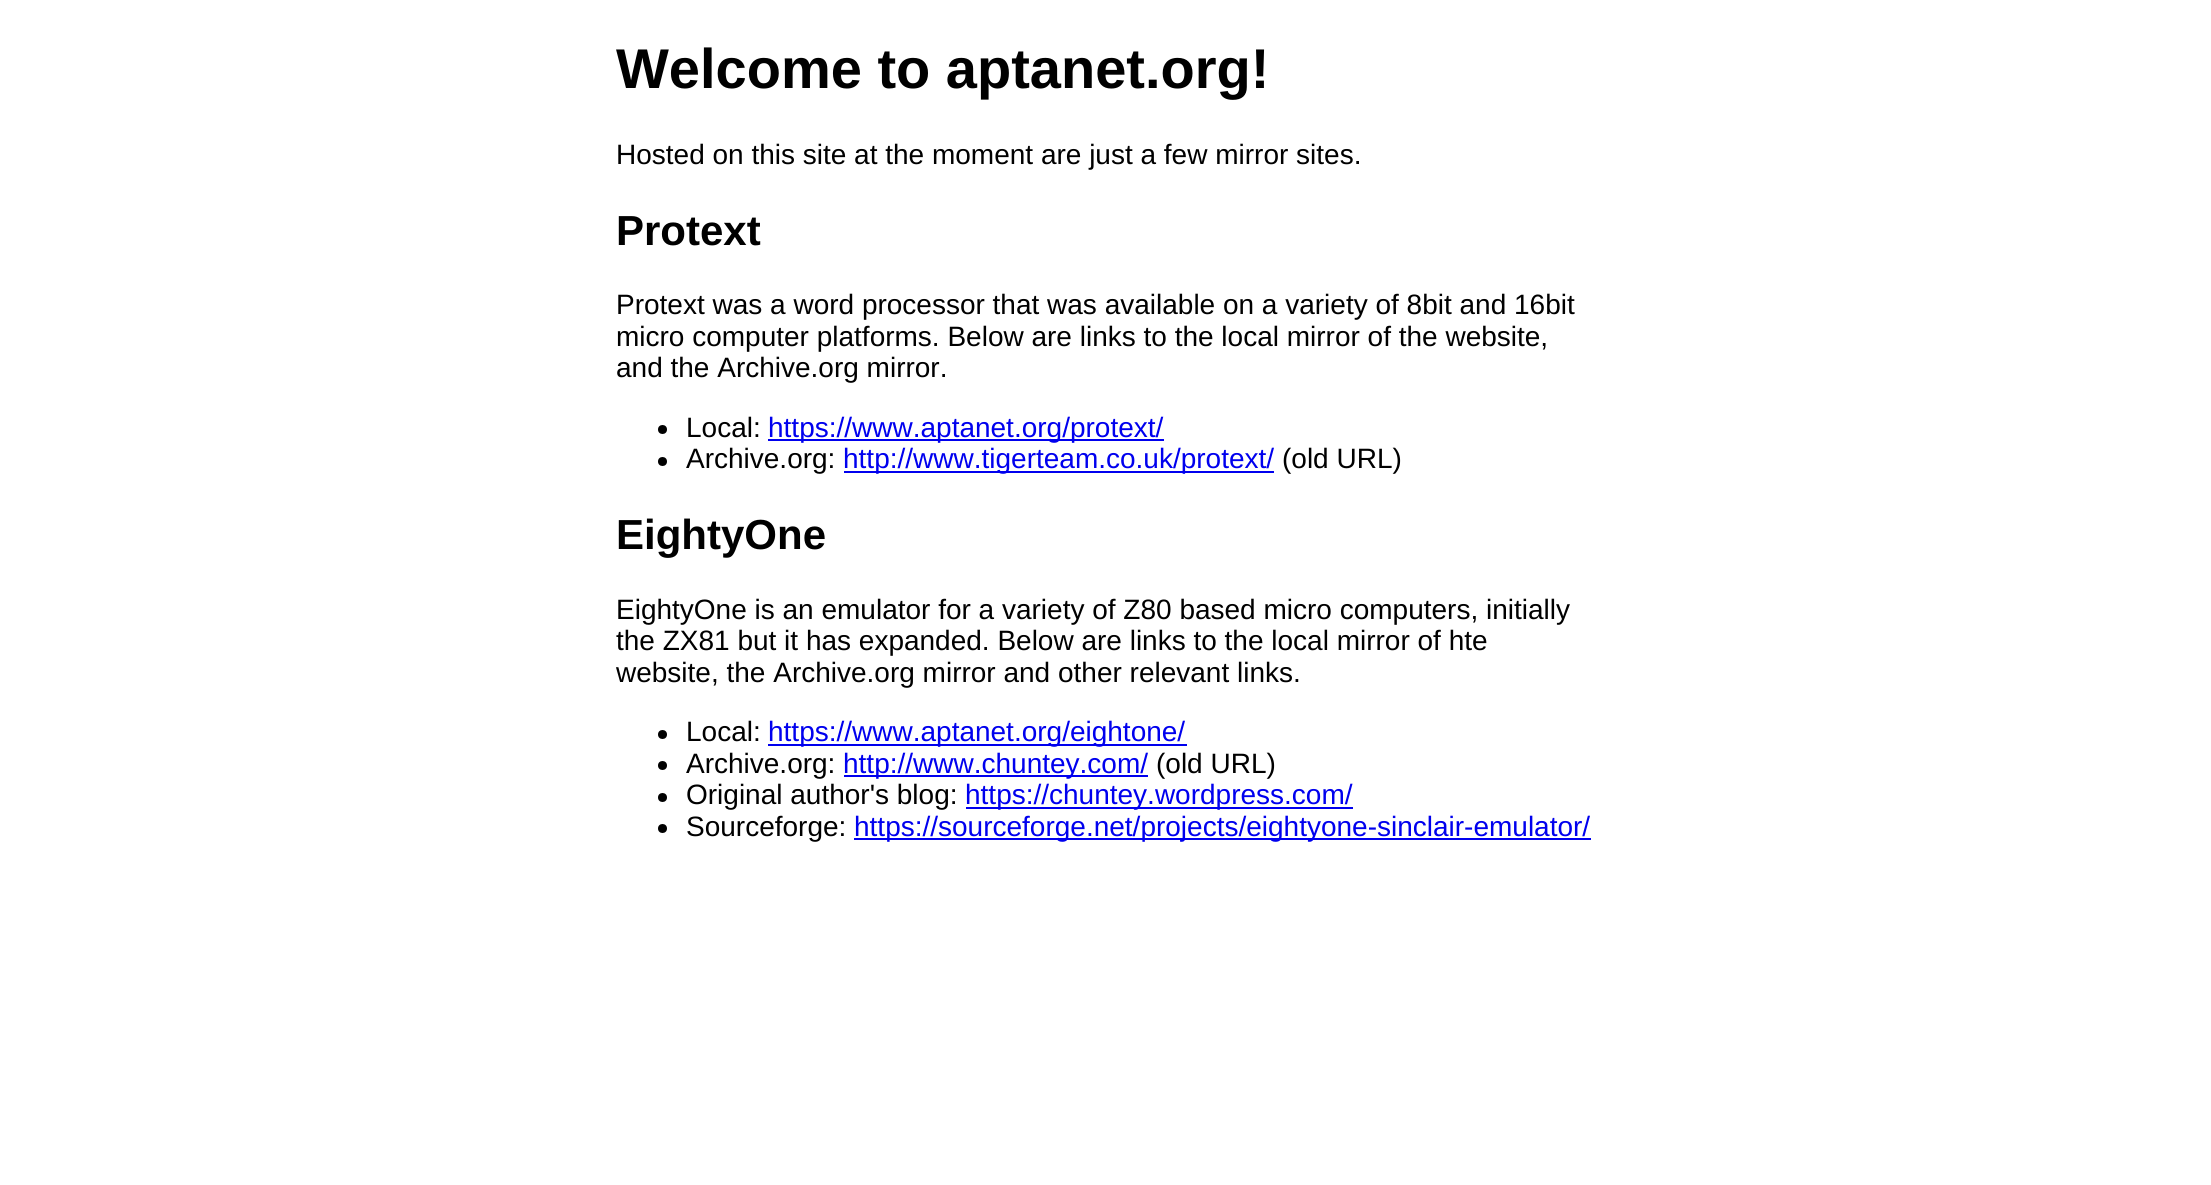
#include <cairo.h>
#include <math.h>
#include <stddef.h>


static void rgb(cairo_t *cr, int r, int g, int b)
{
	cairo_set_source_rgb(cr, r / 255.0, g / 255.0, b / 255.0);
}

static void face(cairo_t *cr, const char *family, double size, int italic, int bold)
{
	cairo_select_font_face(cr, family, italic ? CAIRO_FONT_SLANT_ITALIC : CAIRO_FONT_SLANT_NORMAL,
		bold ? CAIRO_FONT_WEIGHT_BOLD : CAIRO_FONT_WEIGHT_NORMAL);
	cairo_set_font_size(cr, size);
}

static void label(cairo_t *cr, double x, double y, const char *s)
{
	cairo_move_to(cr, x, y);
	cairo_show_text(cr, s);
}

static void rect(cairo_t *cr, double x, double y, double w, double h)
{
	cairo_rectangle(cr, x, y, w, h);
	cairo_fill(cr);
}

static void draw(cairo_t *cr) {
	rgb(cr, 255, 255, 255);
	cairo_paint(cr);
	face(cr, "Liberation Sans", 56, 0, 1);
	rgb(cr, 0, 0, 0);
	label(cr, 616, 88, "Welcome to aptanet.org!");
	face(cr, "Liberation Sans", 28, 0, 0);
	label(cr, 616, 164, "Hosted on this site at the moment are just a few mirror sites.");
	face(cr, "Liberation Sans", 42, 0, 1);
	label(cr, 616, 245, "Protext");
	face(cr, "Liberation Sans", 28, 0, 0);
	label(cr, 616, 314, "Protext was a word processor that was available on a variety of 8bit and 16bit");
	label(cr, 616, 346, "micro computer platforms. Below are links to the local mirror of the website,");
	label(cr, 616, 377, "and the Archive.org mirror.");
	cairo_new_path(cr);
	cairo_arc(cr, 662.5, 429.5, 4.5, 0, 2 * M_PI);
	cairo_fill(cr);
	label(cr, 686, 437, "Local:");
	rgb(cr, 0, 0, 238);
	rect(cr, 768, 439, 396, 2);
	label(cr, 768, 437, "https://www.aptanet.org/protext/");
	rgb(cr, 0, 0, 0);
	cairo_new_path(cr);
	cairo_arc(cr, 662.5, 461.5, 4.5, 0, 2 * M_PI);
	cairo_fill(cr);
	label(cr, 686, 468, "Archive.org:");
	rgb(cr, 0, 0, 238);
	rect(cr, 844, 471, 430, 2);
	label(cr, 843, 468, "http://www.tigerteam.co.uk/protext/");
	rgb(cr, 0, 0, 0);
	label(cr, 1282, 468, "(old URL)");
	face(cr, "Liberation Sans", 42, 0, 1);
	label(cr, 616, 549, "EightyOne");
	face(cr, "Liberation Sans", 28, 0, 0);
	label(cr, 616, 619, "EightyOne is an emulator for a variety of Z80 based micro computers, initially");
	label(cr, 616, 650, "the ZX81 but it has expanded. Below are links to the local mirror of hte");
	label(cr, 616, 682, "website, the Archive.org mirror and other relevant links.");
	cairo_new_path(cr);
	cairo_arc(cr, 662.5, 734.5, 4.5, 0, 2 * M_PI);
	cairo_fill(cr);
	label(cr, 686, 741, "Local:");
	rgb(cr, 0, 0, 238);
	rect(cr, 768, 744, 419, 2);
	label(cr, 768, 741, "https://www.aptanet.org/eightone/");
	rgb(cr, 0, 0, 0);
	cairo_new_path(cr);
	cairo_arc(cr, 662.5, 765.5, 4.5, 0, 2 * M_PI);
	cairo_fill(cr);
	label(cr, 686, 773, "Archive.org:");
	rgb(cr, 0, 0, 238);
	rect(cr, 844, 775, 304, 2);
	label(cr, 843, 773, "http://www.chuntey.com/");
	rgb(cr, 0, 0, 0);
	label(cr, 1156, 773, "(old URL)");
	cairo_new_path(cr);
	cairo_arc(cr, 662.5, 797.5, 4.5, 0, 2 * M_PI);
	cairo_fill(cr);
	label(cr, 686, 804, "Original author's blog:");
	rgb(cr, 0, 0, 238);
	rect(cr, 966, 807, 387, 2);
	label(cr, 965, 804, "https://chuntey.wordpress.com/");
	rgb(cr, 0, 0, 0);
	cairo_new_path(cr);
	cairo_arc(cr, 662.5, 828.5, 4.5, 0, 2 * M_PI);
	cairo_fill(cr);
	label(cr, 686, 836, "Sourceforge:");
	rgb(cr, 0, 0, 238);
	rect(cr, 854, 838, 737, 2);
	label(cr, 854, 836, "https://sourceforge.net/projects/eightyone-sinclair-emulator/");
}

int main(void) {
	cairo_surface_t *surface = cairo_image_surface_create(CAIRO_FORMAT_RGB24, 2211, 1185);
	cairo_t *cr = cairo_create(surface);
	cairo_font_options_t *options = cairo_font_options_create();
	cairo_font_options_set_hint_metrics(options, CAIRO_HINT_METRICS_OFF);
	cairo_font_options_set_hint_style(options, CAIRO_HINT_STYLE_NONE);
	cairo_set_font_options(cr, options);
	cairo_set_miter_limit(cr, 4);
	draw(cr);
	cairo_surface_write_to_png(surface, "render.png");
	cairo_font_options_destroy(options);
	cairo_destroy(cr);
	cairo_surface_destroy(surface);
	return 0;
}
